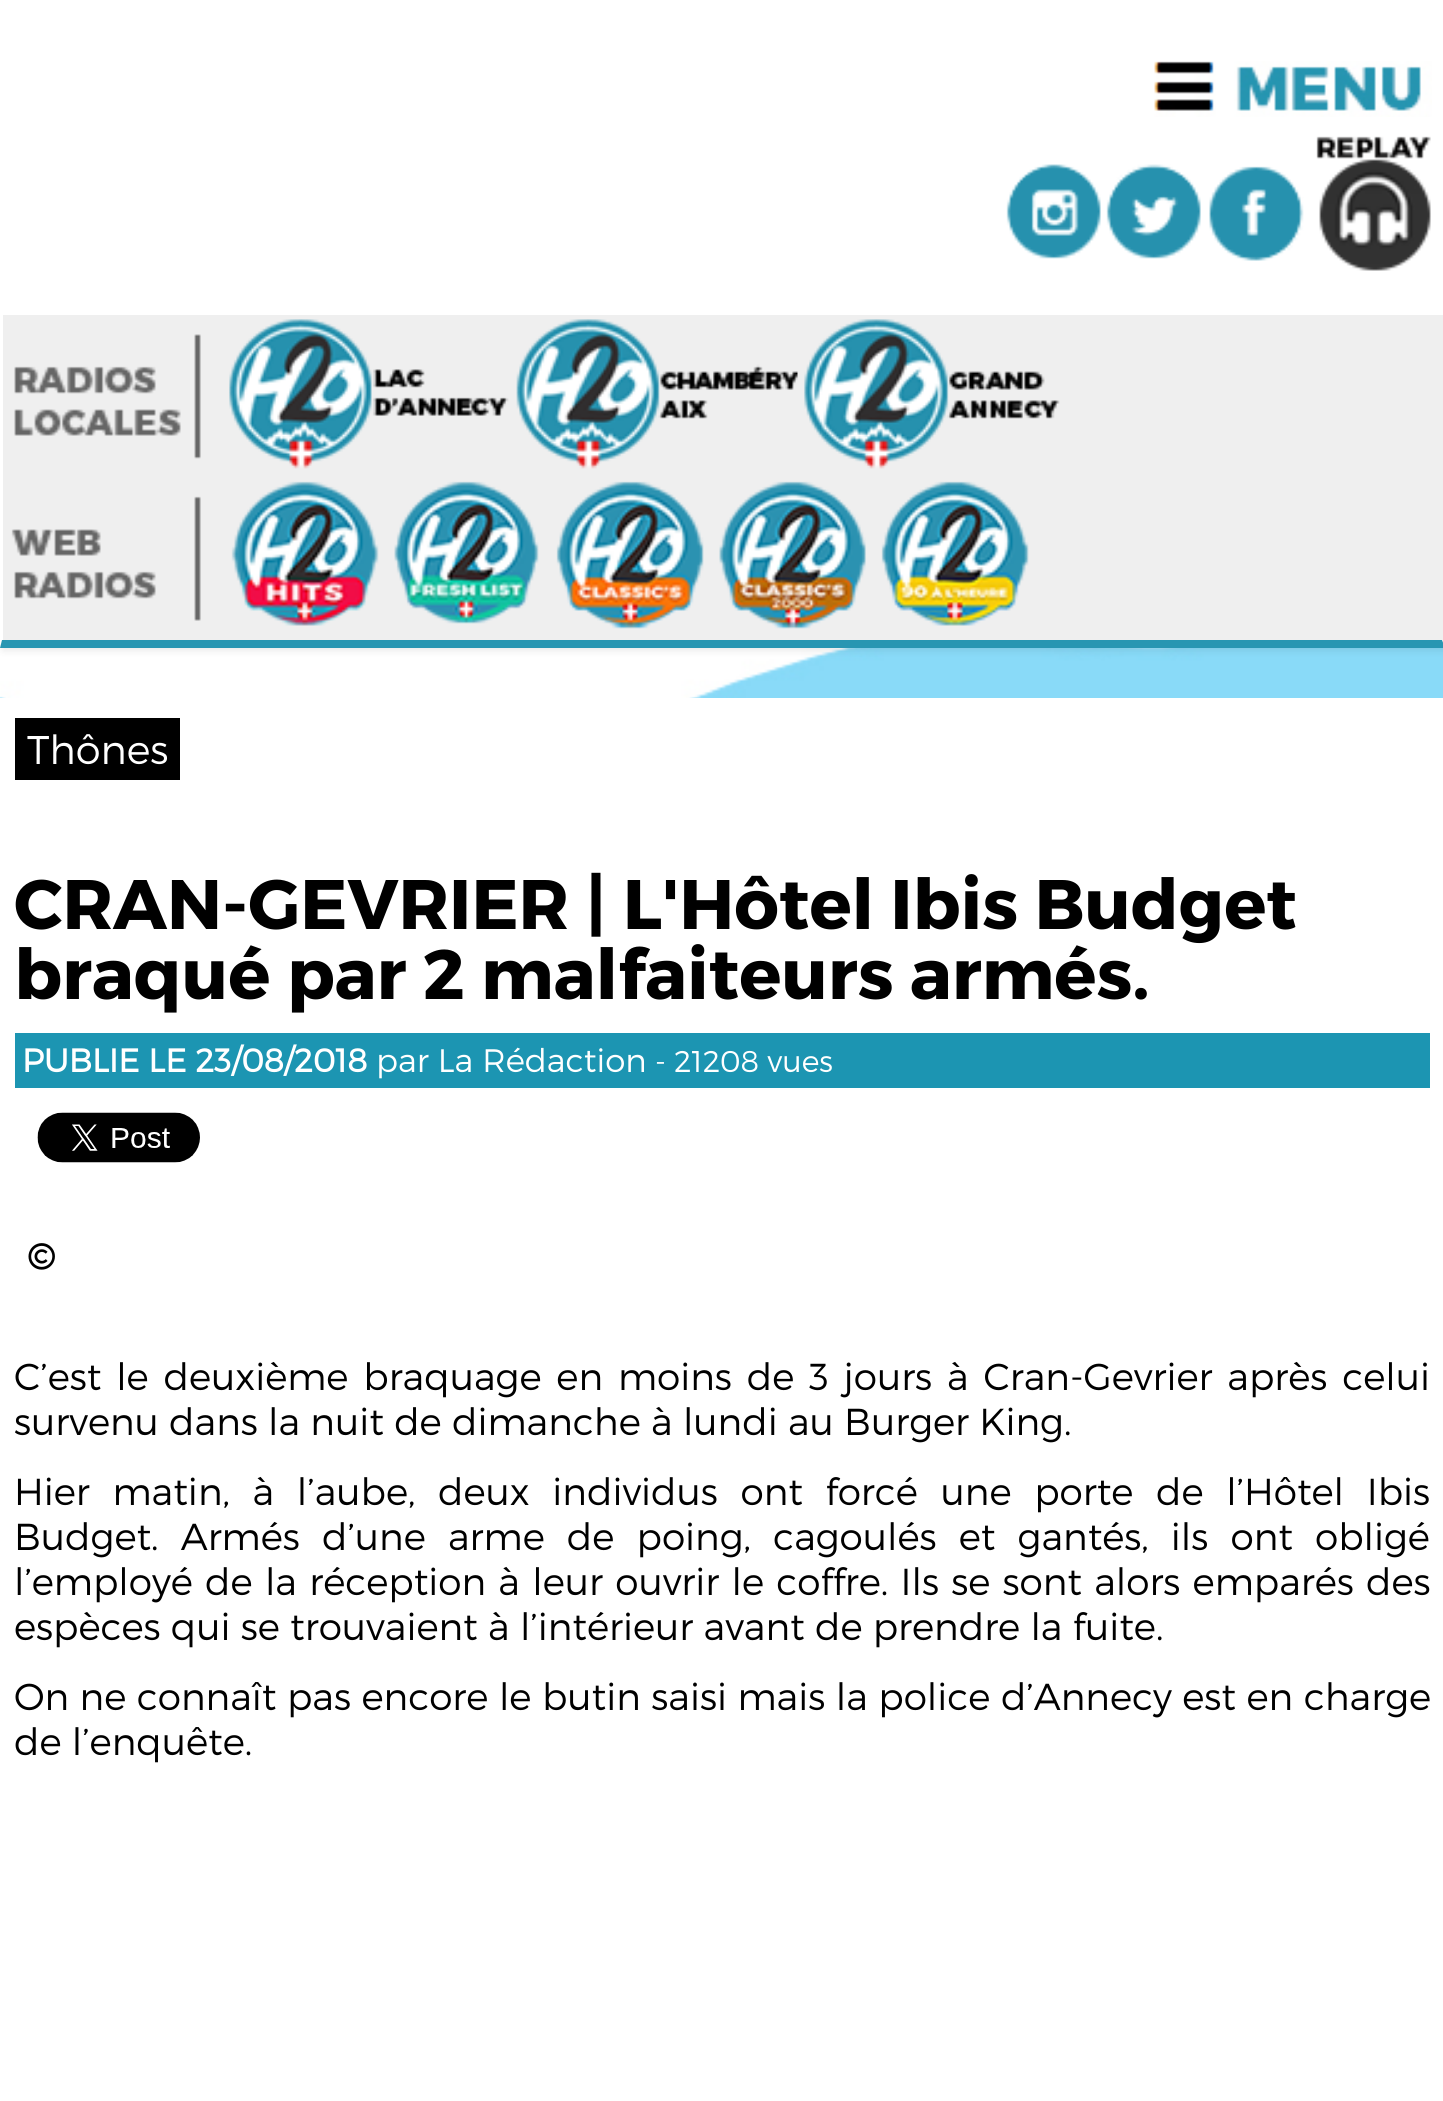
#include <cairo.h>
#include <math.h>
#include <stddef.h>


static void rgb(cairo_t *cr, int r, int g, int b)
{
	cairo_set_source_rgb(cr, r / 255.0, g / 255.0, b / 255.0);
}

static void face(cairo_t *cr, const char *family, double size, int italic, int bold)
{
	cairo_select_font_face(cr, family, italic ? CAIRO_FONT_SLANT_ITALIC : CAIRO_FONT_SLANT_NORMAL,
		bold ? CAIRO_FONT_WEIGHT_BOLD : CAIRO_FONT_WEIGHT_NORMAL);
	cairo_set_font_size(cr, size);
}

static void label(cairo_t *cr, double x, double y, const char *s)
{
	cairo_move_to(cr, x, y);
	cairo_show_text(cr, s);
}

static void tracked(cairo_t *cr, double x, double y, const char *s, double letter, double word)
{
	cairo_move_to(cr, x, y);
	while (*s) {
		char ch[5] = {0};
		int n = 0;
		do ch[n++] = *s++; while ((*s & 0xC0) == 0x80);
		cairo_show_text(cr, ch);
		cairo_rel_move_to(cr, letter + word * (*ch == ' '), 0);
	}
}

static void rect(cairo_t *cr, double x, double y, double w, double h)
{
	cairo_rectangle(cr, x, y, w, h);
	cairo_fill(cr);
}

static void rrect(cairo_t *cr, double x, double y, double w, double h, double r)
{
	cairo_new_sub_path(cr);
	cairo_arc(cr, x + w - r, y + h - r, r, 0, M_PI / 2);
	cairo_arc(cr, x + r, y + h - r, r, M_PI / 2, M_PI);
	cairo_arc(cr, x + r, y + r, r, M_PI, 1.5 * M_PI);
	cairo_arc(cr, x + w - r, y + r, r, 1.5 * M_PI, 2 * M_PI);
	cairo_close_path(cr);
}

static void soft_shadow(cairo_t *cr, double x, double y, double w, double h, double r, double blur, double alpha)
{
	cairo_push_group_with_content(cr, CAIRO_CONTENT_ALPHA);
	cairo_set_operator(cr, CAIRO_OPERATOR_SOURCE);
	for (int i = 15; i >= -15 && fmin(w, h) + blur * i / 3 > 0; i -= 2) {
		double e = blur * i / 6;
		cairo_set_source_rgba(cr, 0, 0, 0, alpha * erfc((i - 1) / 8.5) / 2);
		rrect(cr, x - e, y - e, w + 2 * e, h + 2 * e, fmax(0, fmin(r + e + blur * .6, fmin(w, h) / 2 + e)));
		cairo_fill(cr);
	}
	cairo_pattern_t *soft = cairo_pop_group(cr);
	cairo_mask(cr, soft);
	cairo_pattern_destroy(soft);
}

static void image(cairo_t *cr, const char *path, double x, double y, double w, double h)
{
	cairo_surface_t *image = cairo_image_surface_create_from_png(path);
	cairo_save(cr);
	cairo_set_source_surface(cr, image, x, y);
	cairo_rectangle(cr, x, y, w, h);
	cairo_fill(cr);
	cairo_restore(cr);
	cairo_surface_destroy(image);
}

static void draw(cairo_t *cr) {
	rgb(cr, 255, 255, 255);
	cairo_paint(cr);
	image(cr, "image0.png", 0, 648, 1443, 50);
	rgb(cr, 0, 0, 0);
	soft_shadow(cr, 3, 3, 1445, 647, 0, 4, 0.1);
	rgb(cr, 255, 255, 255);
	rect(cr, 0, 0, 1443, 648);
	rgb(cr, 40, 150, 178);
	cairo_new_path(cr);
	cairo_move_to(cr, 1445, 648);
	cairo_line_to(cr, 0, 648);
	cairo_line_to(cr, 2, 640);
	cairo_line_to(cr, 1442, 640);
	cairo_close_path(cr);
	cairo_fill(cr);
	image(cr, "image1.png", 1154, 61, 278, 56);
	image(cr, "image2.png", 1006, 164, 95, 95);
	image(cr, "image3.png", 1106, 164, 95, 95);
	image(cr, "image4.png", 1209, 166, 95, 95);
	image(cr, "image5.png", 1315, 135, 120, 155);
	rgb(cr, 239, 239, 239);
	rect(cr, 3, 315, 1440, 325);
	image(cr, "image6.png", 14, 334, 187, 125);
	image(cr, "image7.png", 229, 319, 280, 150);
	image(cr, "image8.png", 516, 319, 282, 150);
	image(cr, "image9.png", 804, 319, 256, 150);
	image(cr, "image10.png", 11, 496, 190, 125);
	image(cr, "image11.png", 231, 481, 148, 145);
	image(cr, "image12.png", 394, 481, 145, 143);
	image(cr, "image13.png", 556, 481, 148, 148);
	image(cr, "image14.png", 719, 481, 147, 148);
	image(cr, "image15.png", 881, 481, 148, 145);
	rgb(cr, 0, 0, 0);
	rect(cr, 15, 718, 165, 62);
	face(cr, "Montserrat Light", 40, 0, 0);
	rgb(cr, 255, 255, 255);
	label(cr, 27, 764, "Thônes");
	face(cr, "Montserrat", 70, 0, 1);
	rgb(cr, 0, 0, 0);
	label(cr, 14, 929, "CRAN-GEVRIER | L'Hôtel Ibis Budget");
	label(cr, 14, 999, "braqué par 2 malfaiteurs armés.");
	rgb(cr, 28, 149, 178);
	rect(cr, 15, 1033, 1415, 55);
	face(cr, "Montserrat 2", 32.5, 0, 1);
	rgb(cr, 255, 255, 255);
	label(cr, 22, 1072, "PUBLIE LE 23/08/2018");
	face(cr, "Montserrat Light", 32.5, 0, 0);
	label(cr, 376, 1072, "par La Rédaction");
	face(cr, "Montserrat Light", 30, 0, 0);
	label(cr, 655, 1072, "- 21208 vues");
	image(cr, "image16.png", 37, 1112, 163, 51);
	face(cr, "Montserrat 2", 37.5, 0, 1);
	rgb(cr, 0, 0, 0);
	label(cr, 27, 1270, "©");
	face(cr, "Montserrat Light", 37.5, 0, 0);
	tracked(cr, 14, 1390, "C’est le deuxième braquage en moins de 3 jours à Cran-Gevrier après celui", 0, 4.6);
	label(cr, 14, 1435, "survenu dans la nuit de dimanche à lundi au Burger King.");
	tracked(cr, 14, 1505, "Hier matin, à l’aube, deux individus ont forcé une porte de l’Hôtel Ibis", 0, 12.4);
	tracked(cr, 14, 1550, "Budget. Armés d’une arme de poing, cagoulés et gantés, ils ont obligé", 0, 11.9);
	tracked(cr, 14, 1595, "l’employé de la réception à leur ouvrir le coffre. Ils se sont alors emparés des", 0, 2);
	label(cr, 14, 1640, "espèces qui se trouvaient à l’intérieur avant de prendre la fuite.");
	tracked(cr, 14, 1710, "On ne connaît pas encore le butin saisi mais la police d’Annecy est en charge", 0, 0.25);
	label(cr, 14, 1755, "de l’enquête.");
}

int main(void) {
	cairo_surface_t *surface = cairo_image_surface_create(CAIRO_FORMAT_RGB24, 1443, 2101);
	cairo_t *cr = cairo_create(surface);
	cairo_font_options_t *options = cairo_font_options_create();
	cairo_font_options_set_hint_metrics(options, CAIRO_HINT_METRICS_OFF);
	cairo_font_options_set_hint_style(options, CAIRO_HINT_STYLE_NONE);
	cairo_set_font_options(cr, options);
	cairo_set_miter_limit(cr, 4);
	draw(cr);
	cairo_surface_write_to_png(surface, "render.png");
	cairo_font_options_destroy(options);
	cairo_destroy(cr);
	cairo_surface_destroy(surface);
	return 0;
}
